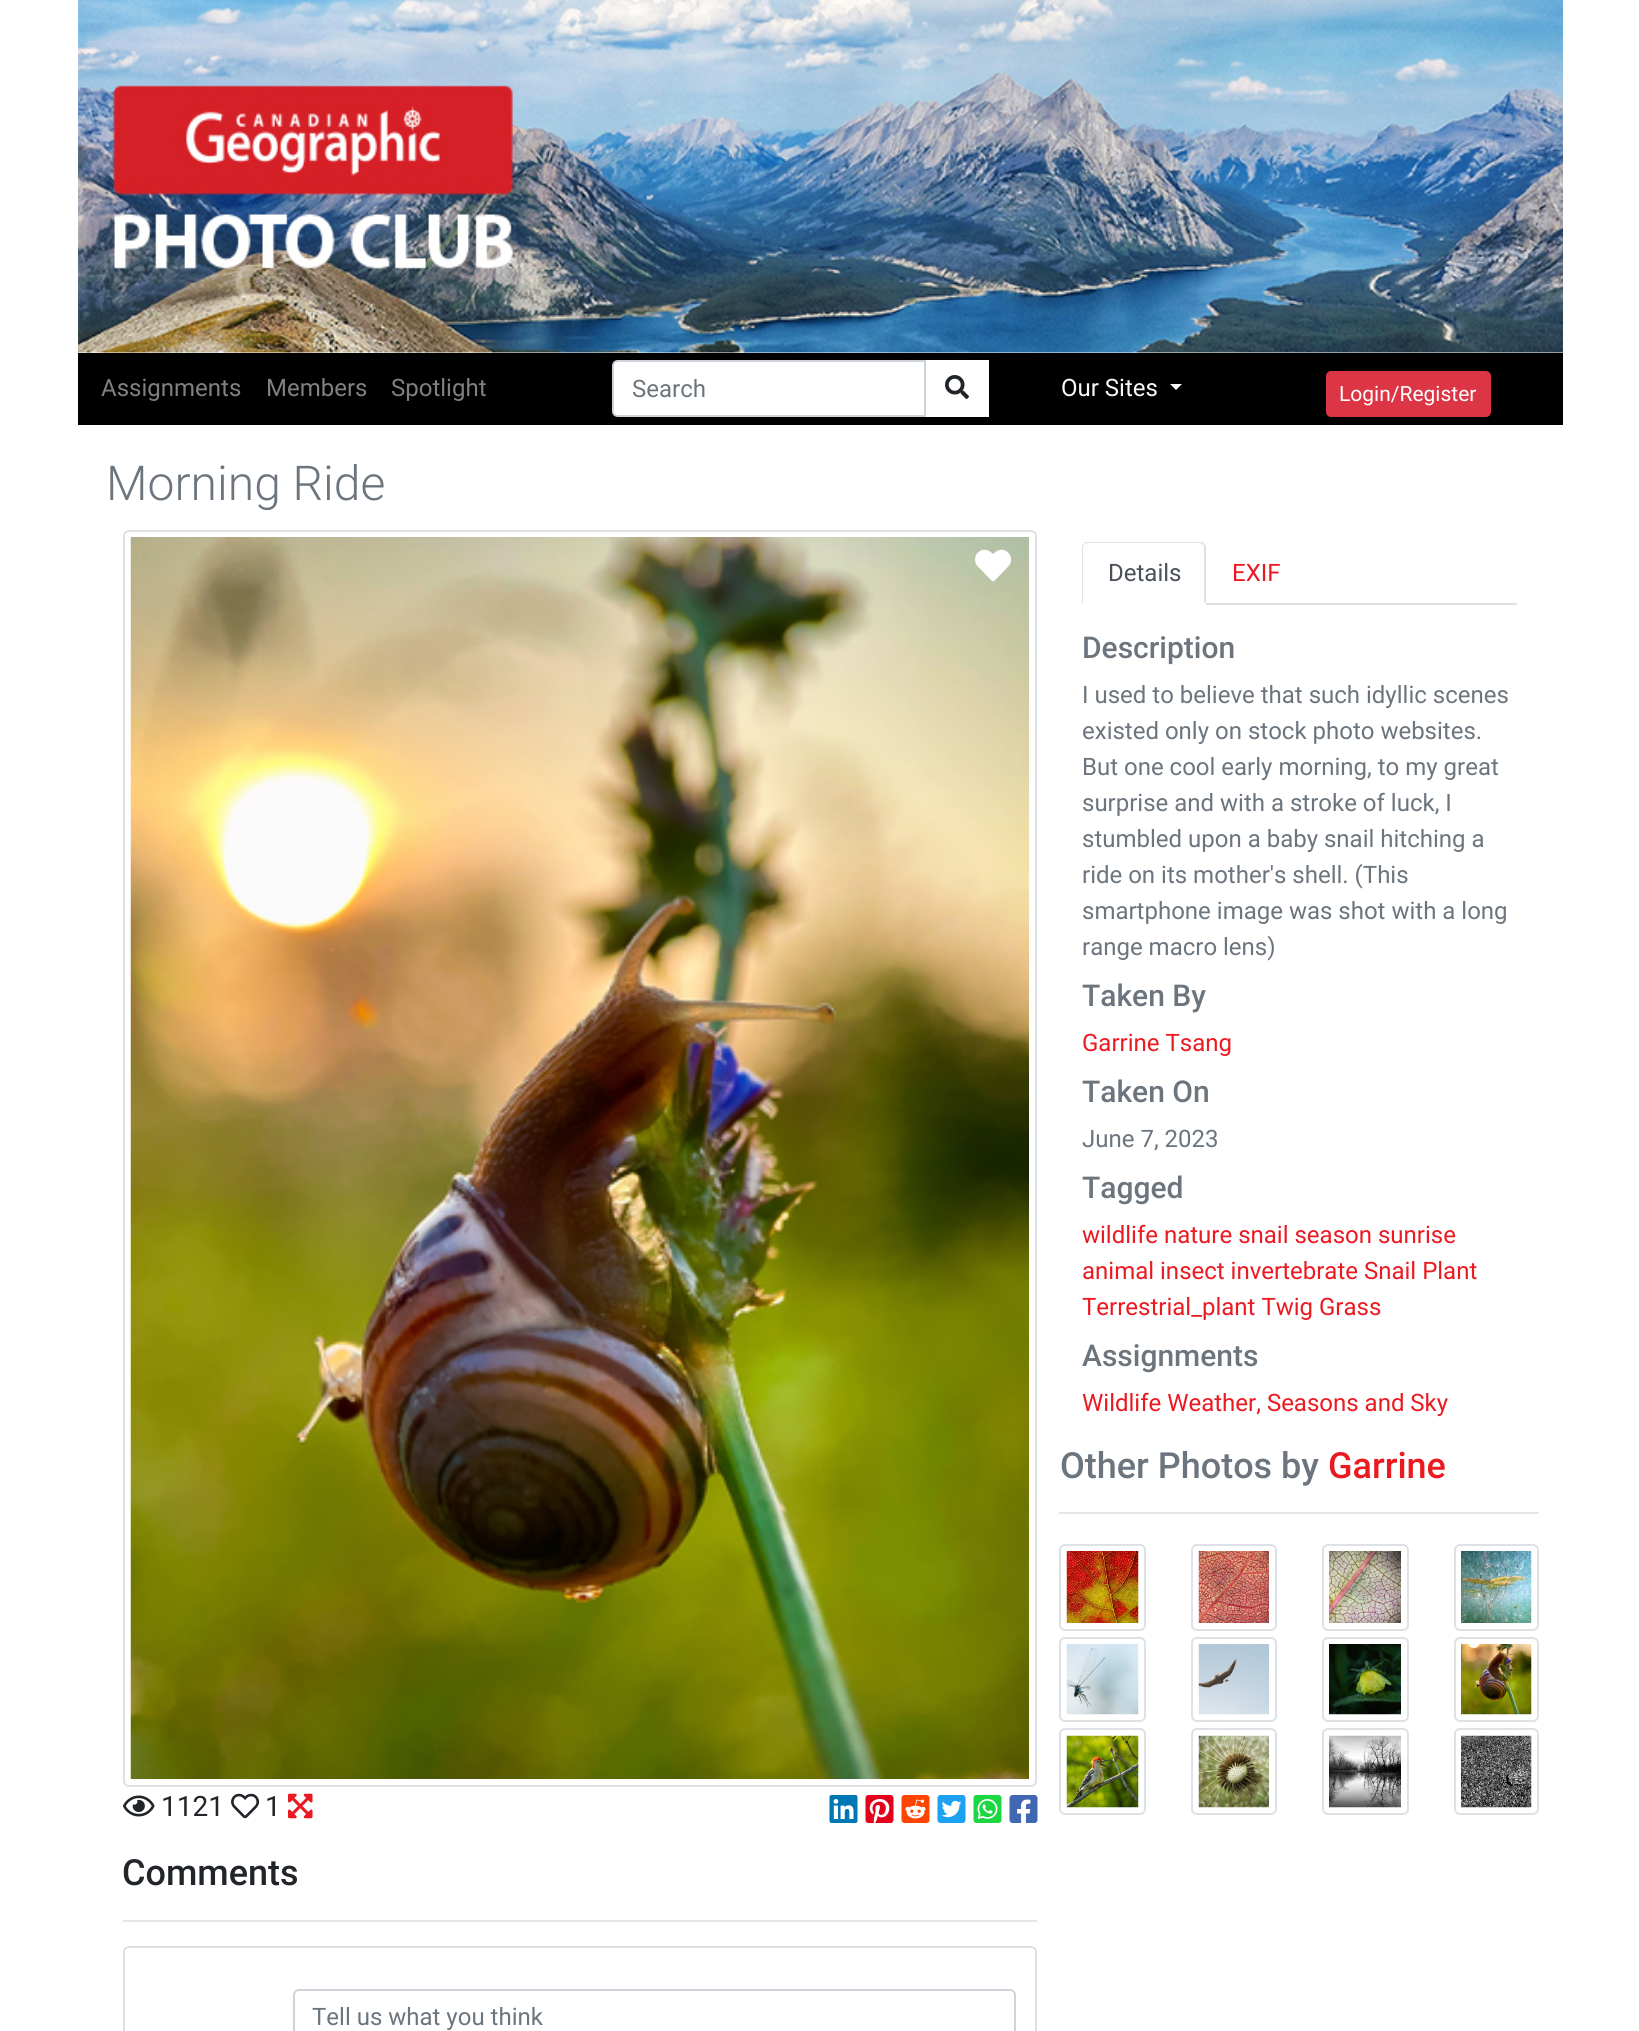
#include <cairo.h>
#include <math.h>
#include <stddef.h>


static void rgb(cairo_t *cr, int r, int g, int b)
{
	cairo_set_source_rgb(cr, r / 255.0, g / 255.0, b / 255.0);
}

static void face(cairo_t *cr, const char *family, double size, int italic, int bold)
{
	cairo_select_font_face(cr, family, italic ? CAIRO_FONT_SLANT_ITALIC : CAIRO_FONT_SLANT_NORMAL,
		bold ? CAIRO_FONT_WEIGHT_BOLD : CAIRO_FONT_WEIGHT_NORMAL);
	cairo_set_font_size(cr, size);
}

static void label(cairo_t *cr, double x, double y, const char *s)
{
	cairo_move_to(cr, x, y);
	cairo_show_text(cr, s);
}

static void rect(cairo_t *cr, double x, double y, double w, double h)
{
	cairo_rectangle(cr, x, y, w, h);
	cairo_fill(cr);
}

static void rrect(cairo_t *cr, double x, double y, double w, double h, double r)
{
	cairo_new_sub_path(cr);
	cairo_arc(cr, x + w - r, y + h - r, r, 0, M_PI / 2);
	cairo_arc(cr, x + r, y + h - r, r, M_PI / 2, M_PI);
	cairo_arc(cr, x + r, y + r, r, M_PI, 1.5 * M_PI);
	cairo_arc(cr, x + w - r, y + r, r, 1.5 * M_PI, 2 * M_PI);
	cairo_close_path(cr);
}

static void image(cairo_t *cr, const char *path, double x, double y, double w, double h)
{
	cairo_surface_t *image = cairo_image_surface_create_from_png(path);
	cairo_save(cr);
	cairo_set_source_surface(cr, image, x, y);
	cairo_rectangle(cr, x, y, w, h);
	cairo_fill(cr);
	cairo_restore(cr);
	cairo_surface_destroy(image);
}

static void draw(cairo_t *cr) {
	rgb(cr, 255, 255, 255);
	cairo_paint(cr);
	image(cr, "image0.png", 78, 0, 1485, 353);
	rgb(cr, 0, 0, 0);
	rect(cr, 78, 353, 1485, 72);
	face(cr, "Roboto", 24, 0, 0);
	rgb(cr, 128, 128, 128);
	label(cr, 101, 396, "Assignments");
	label(cr, 266, 396, "Members");
	label(cr, 391, 396, "Spotlight");
	rgb(cr, 255, 255, 255);
	cairo_new_path(cr);
	cairo_move_to(cr, 618, 361);
	cairo_line_to(cr, 925, 361);
	cairo_line_to(cr, 925, 416);
	cairo_line_to(cr, 618, 416);
	cairo_curve_to(cr, 615, 416, 613, 414, 613, 411);
	cairo_line_to(cr, 613, 366);
	cairo_curve_to(cr, 613, 363, 615, 361, 618, 361);
	cairo_close_path(cr);
	cairo_fill_preserve(cr);
	rgb(cr, 206, 212, 218);
	cairo_stroke(cr);
	rgb(cr, 108, 117, 125);
	label(cr, 632, 397, "Search");
	rgb(cr, 255, 255, 255);
	rect(cr, 926, 360, 63, 57);
	image(cr, "image1.png", 945, 375, 24, 24);
	rgb(cr, 248, 249, 250);
	label(cr, 1061, 396, "Our Sites");
	cairo_new_path(cr);
	cairo_move_to(cr, 1170, 384);
	cairo_line_to(cr, 1182, 384);
	cairo_line_to(cr, 1176, 390);
	cairo_close_path(cr);
	cairo_fill(cr);
	rgb(cr, 220, 53, 69);
	rrect(cr, 1327, 372, 163, 44, 4);
	cairo_fill_preserve(cr);
	cairo_stroke(cr);
	face(cr, "Roboto", 21, 0, 0);
	rgb(cr, 255, 255, 255);
	label(cr, 1339, 401, "Login/Register");
	face(cr, "Roboto Light", 48, 0, 0);
	rgb(cr, 108, 117, 125);
	label(cr, 106, 500, "Morning Ride");
	rgb(cr, 222, 226, 230);
	rect(cr, 1206, 603, 311, 2);
	cairo_new_path(cr);
	cairo_move_to(cr, 1088, 542);
	cairo_curve_to(cr, 1086, 542, 1084, 542, 1084, 544);
	cairo_curve_to(cr, 1085, 544, 1086, 543, 1088, 543);
	cairo_line_to(cr, 1200, 543);
	cairo_curve_to(cr, 1201, 543, 1202, 544, 1203, 545);
	cairo_line_to(cr, 1204, 543);
	cairo_curve_to(cr, 1203, 542, 1201, 542, 1200, 542);
	cairo_close_path(cr);
	cairo_fill(cr);
	cairo_new_path(cr);
	cairo_move_to(cr, 1204, 543);
	cairo_curve_to(cr, 1205, 544, 1206, 546, 1206, 548);
	cairo_line_to(cr, 1206, 604);
	cairo_line_to(cr, 1204, 602);
	cairo_line_to(cr, 1204, 548);
	cairo_curve_to(cr, 1204, 547, 1204, 545, 1203, 545);
	cairo_close_path(cr);
	cairo_fill(cr);
	rgb(cr, 255, 255, 255);
	cairo_new_path(cr);
	cairo_move_to(cr, 1206, 604);
	cairo_line_to(cr, 1082, 604);
	cairo_line_to(cr, 1083, 603);
	cairo_line_to(cr, 1204, 603);
	cairo_line_to(cr, 1204, 602);
	cairo_close_path(cr);
	cairo_fill(cr);
	rgb(cr, 222, 226, 230);
	cairo_new_path(cr);
	cairo_move_to(cr, 1084, 544);
	cairo_curve_to(cr, 1082, 544, 1082, 546, 1082, 548);
	cairo_line_to(cr, 1082, 604);
	cairo_line_to(cr, 1083, 603);
	cairo_line_to(cr, 1083, 548);
	cairo_curve_to(cr, 1083, 546, 1084, 545, 1084, 544);
	cairo_close_path(cr);
	cairo_fill(cr);
	face(cr, "Roboto", 24, 0, 0);
	rgb(cr, 73, 80, 87);
	label(cr, 1108, 581, "Details");
	rgb(cr, 235, 26, 33);
	label(cr, 1232, 581, "EXIF");
	face(cr, "Roboto Medium", 30, 0, 0);
	rgb(cr, 108, 117, 125);
	label(cr, 1082, 658, "Description");
	face(cr, "Roboto", 24, 0, 0);
	label(cr, 1082, 703, "I used to believe that such idyllic scenes");
	label(cr, 1082, 739, "existed only on stock photo websites.");
	label(cr, 1082, 775, "But one cool early morning, to my great");
	label(cr, 1082, 811, "surprise and with a stroke of luck, I");
	label(cr, 1082, 847, "stumbled upon a baby snail hitching a");
	label(cr, 1082, 883, "ride on its mother's shell. (This");
	label(cr, 1082, 919, "smartphone image was shot with a long");
	label(cr, 1082, 955, "range macro lens)");
	face(cr, "Roboto Medium", 30, 0, 0);
	label(cr, 1082, 1006, "Taken By");
	face(cr, "Roboto", 24, 0, 0);
	rgb(cr, 235, 26, 33);
	label(cr, 1082, 1051, "Garrine Tsang");
	face(cr, "Roboto Medium", 30, 0, 0);
	rgb(cr, 108, 117, 125);
	label(cr, 1082, 1102, "Taken On");
	face(cr, "Roboto", 24, 0, 0);
	label(cr, 1082, 1147, "June 7, 2023");
	face(cr, "Roboto Medium", 30, 0, 0);
	label(cr, 1082, 1198, "Tagged");
	face(cr, "Roboto", 24, 0, 0);
	rgb(cr, 235, 26, 33);
	label(cr, 1082, 1243, "wildlife nature snail season sunrise");
	label(cr, 1082, 1279, "animal insect invertebrate Snail Plant");
	label(cr, 1082, 1315, "Terrestrial_plant Twig Grass");
	face(cr, "Roboto Medium", 30, 0, 0);
	rgb(cr, 108, 117, 125);
	label(cr, 1082, 1366, "Assignments");
	face(cr, "Roboto", 24, 0, 0);
	rgb(cr, 235, 26, 33);
	label(cr, 1082, 1411, "Wildlife Weather, Seasons and Sky");
	face(cr, "Roboto Medium", 36, 0, 0);
	rgb(cr, 108, 117, 125);
	label(cr, 1060, 1478, "Other Photos by");
	rgb(cr, 235, 26, 33);
	label(cr, 1328, 1478, "Garrine");
	rgb(cr, 230, 230, 230);
	rect(cr, 1059, 1512, 480, 2);
	rrect(cr, 1060, 1545, 85, 85, 5);
	rgb(cr, 222, 226, 230);
	cairo_stroke(cr);
	image(cr, "image2.png", 1066, 1551, 73, 72);
	rrect(cr, 1192, 1545, 84, 85, 5);
	cairo_stroke(cr);
	image(cr, "image3.png", 1198, 1551, 71, 72);
	rrect(cr, 1323, 1545, 85, 85, 5);
	cairo_stroke(cr);
	image(cr, "image4.png", 1329, 1551, 72, 72);
	rrect(cr, 1455, 1545, 83, 85, 5);
	cairo_stroke(cr);
	image(cr, "image5.png", 1461, 1551, 71, 72);
	rrect(cr, 1060, 1638, 85, 83, 5);
	cairo_stroke(cr);
	image(cr, "image6.png", 1066, 1644, 73, 71);
	rrect(cr, 1192, 1638, 84, 83, 5);
	cairo_stroke(cr);
	image(cr, "image7.png", 1198, 1644, 71, 71);
	rrect(cr, 1323, 1638, 85, 83, 5);
	cairo_stroke(cr);
	image(cr, "image8.png", 1329, 1644, 72, 71);
	rrect(cr, 1455, 1638, 83, 83, 5);
	cairo_stroke(cr);
	image(cr, "image9.png", 1461, 1644, 71, 71);
	rrect(cr, 1060, 1729, 85, 85, 5);
	cairo_stroke(cr);
	image(cr, "image10.png", 1066, 1735, 73, 73);
	rrect(cr, 1192, 1729, 84, 85, 5);
	cairo_stroke(cr);
	image(cr, "image11.png", 1198, 1735, 71, 73);
	rrect(cr, 1323, 1729, 85, 85, 5);
	cairo_stroke(cr);
	image(cr, "image12.png", 1329, 1735, 72, 73);
	rrect(cr, 1455, 1729, 83, 85, 5);
	cairo_stroke(cr);
	image(cr, "image13.png", 1461, 1735, 71, 73);
	rrect(cr, 124, 531, 912, 1255, 5);
	cairo_stroke(cr);
	image(cr, "image14.png", 130, 537, 899, 1242);
	image(cr, "image15.png", 975, 549, 37, 33);
	image(cr, "image16.png", 123, 1795, 32, 22);
	face(cr, "Roboto", 28, 0, 0);
	rgb(cr, 33, 37, 41);
	label(cr, 161, 1816, "1121");
	image(cr, "image17.png", 231, 1793, 29, 26);
	label(cr, 265, 1816, "1");
	image(cr, "image18.png", 288, 1793, 25, 26);
	image(cr, "image19.png", 829, 1795, 29, 28);
	image(cr, "image20.png", 865, 1795, 29, 28);
	image(cr, "image21.png", 901, 1795, 29, 28);
	image(cr, "image22.png", 937, 1795, 29, 28);
	image(cr, "image23.png", 973, 1795, 29, 28);
	image(cr, "image24.png", 1009, 1795, 29, 28);
	face(cr, "Roboto Medium", 36, 0, 0);
	label(cr, 122, 1885, "Comments");
	rgb(cr, 230, 230, 230);
	rect(cr, 123, 1920, 914, 2);
	rrect(cr, 124, 1947, 912, 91, 5);
	rgb(cr, 223, 223, 223);
	cairo_stroke(cr);
	rrect(cr, 294, 1990, 721, 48, 5);
	rgb(cr, 206, 212, 218);
	cairo_stroke(cr);
	face(cr, "Roboto", 24, 0, 0);
	rgb(cr, 108, 117, 125);
	label(cr, 312, 2025, "Tell us what you think");
}

int main(void) {
	cairo_surface_t *surface = cairo_image_surface_create(CAIRO_FORMAT_RGB24, 1639, 2031);
	cairo_t *cr = cairo_create(surface);
	cairo_font_options_t *options = cairo_font_options_create();
	cairo_font_options_set_hint_metrics(options, CAIRO_HINT_METRICS_OFF);
	cairo_font_options_set_hint_style(options, CAIRO_HINT_STYLE_NONE);
	cairo_set_font_options(cr, options);
	cairo_set_miter_limit(cr, 4);
	draw(cr);
	cairo_surface_write_to_png(surface, "render.png");
	cairo_font_options_destroy(options);
	cairo_destroy(cr);
	cairo_surface_destroy(surface);
	return 0;
}
